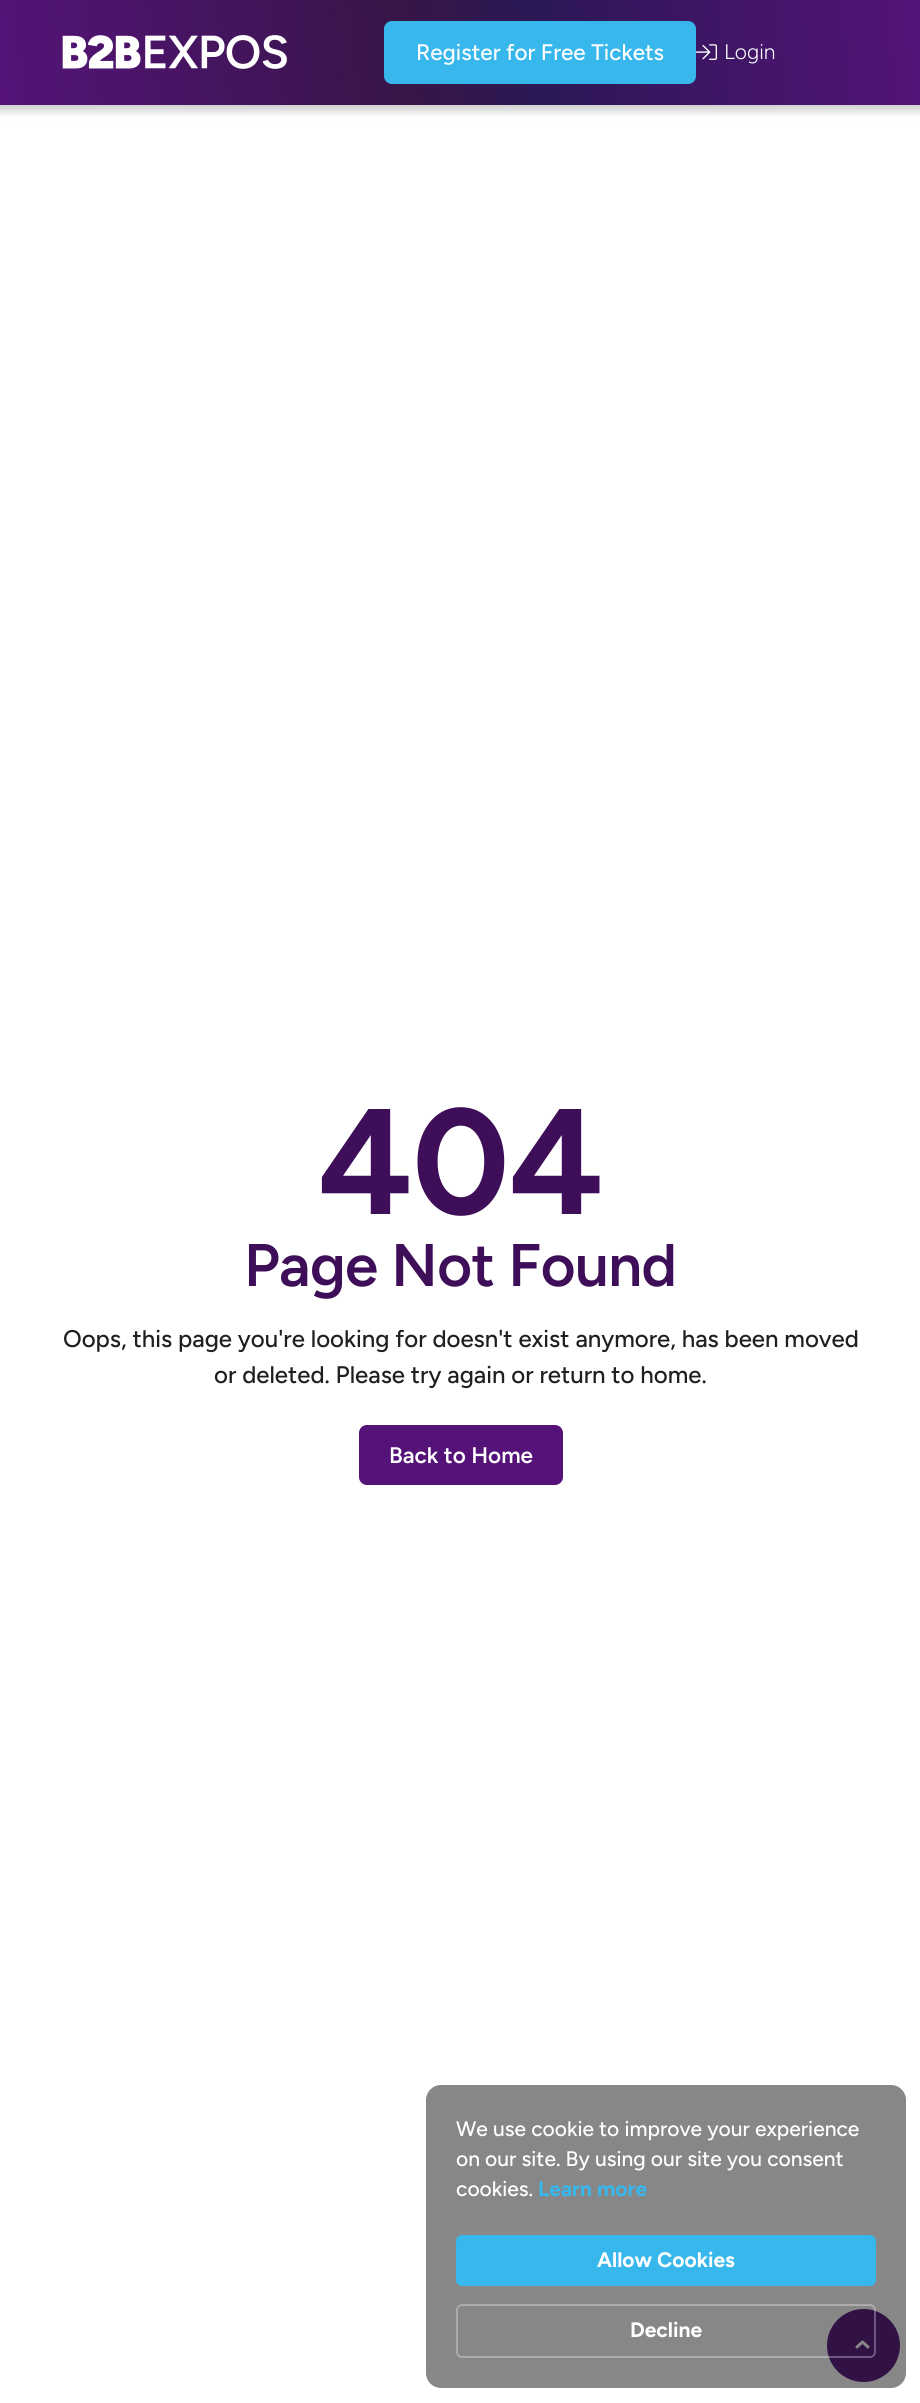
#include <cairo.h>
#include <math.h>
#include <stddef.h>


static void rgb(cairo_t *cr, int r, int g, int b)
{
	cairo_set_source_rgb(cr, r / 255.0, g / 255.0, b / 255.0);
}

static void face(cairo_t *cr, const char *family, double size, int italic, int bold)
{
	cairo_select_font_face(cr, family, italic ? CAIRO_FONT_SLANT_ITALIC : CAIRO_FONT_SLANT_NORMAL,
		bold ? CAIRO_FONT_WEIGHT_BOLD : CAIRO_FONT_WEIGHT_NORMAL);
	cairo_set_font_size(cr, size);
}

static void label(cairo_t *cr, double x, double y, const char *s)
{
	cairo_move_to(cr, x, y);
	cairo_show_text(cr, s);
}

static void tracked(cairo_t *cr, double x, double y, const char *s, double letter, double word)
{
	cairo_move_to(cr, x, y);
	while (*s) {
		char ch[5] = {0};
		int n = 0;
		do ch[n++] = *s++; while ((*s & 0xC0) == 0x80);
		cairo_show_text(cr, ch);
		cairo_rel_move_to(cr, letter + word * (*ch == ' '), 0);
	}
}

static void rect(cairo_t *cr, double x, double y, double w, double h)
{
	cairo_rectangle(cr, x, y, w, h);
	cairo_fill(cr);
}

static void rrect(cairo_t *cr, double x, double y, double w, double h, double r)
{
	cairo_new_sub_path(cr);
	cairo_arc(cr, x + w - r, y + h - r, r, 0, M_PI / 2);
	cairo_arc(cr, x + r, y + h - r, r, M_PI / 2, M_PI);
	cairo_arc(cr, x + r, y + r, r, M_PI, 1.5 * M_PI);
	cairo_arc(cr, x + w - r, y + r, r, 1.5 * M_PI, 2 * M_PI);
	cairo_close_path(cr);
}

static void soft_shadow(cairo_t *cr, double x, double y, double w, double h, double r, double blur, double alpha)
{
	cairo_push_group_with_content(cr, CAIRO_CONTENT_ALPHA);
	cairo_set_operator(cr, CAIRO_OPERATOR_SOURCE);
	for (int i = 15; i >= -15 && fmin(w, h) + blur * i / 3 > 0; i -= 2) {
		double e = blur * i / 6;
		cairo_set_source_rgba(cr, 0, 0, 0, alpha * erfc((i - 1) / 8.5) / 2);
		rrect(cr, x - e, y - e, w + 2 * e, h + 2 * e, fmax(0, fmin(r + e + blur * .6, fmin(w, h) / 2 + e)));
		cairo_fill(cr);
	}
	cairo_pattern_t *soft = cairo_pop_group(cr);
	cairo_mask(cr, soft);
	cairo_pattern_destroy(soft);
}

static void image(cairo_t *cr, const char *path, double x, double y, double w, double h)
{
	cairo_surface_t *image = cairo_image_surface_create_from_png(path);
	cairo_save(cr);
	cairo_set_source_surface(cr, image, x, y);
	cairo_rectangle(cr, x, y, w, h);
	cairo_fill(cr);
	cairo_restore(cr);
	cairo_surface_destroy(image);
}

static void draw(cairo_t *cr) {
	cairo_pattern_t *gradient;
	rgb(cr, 255, 255, 255);
	cairo_paint(cr);
	rgb(cr, 17, 17, 17);
	soft_shadow(cr, -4, -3, 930, 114, 0, 4.5, 0.21);
	gradient = cairo_pattern_create_linear(0.5, 109, 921, -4);
	cairo_pattern_add_color_stop_rgba(gradient, 0, 0.333, 0.075, 0.475, 1);
	cairo_pattern_add_color_stop_rgba(gradient, 0.44, 0.216, 0.086, 0.282, 1);
	cairo_pattern_add_color_stop_rgba(gradient, 0.58, 0.169, 0.094, 0.333, 1);
	cairo_pattern_add_color_stop_rgba(gradient, 1, 0.333, 0.075, 0.475, 1);
	cairo_set_source(cr, gradient);
	cairo_pattern_destroy(gradient);
	rect(cr, 0, 0, 920, 105);
	image(cr, "image0.png", 62, 35, 225, 34);
	rgb(cr, 56, 183, 237);
	rrect(cr, 385, 22, 310, 61, 7);
	cairo_fill_preserve(cr);
	cairo_stroke(cr);
	face(cr, "Figtree Medium", 22.5, 0, 0);
	rgb(cr, 255, 255, 255);
	label(cr, 416, 60, "Register for Free Tickets");
	image(cr, "image1.png", 696, 44, 21, 16);
	face(cr, "Figtree Light", 21, 0, 0);
	label(cr, 724, 59, "Login");
	face(cr, "Figtree", 150, 0, 1);
	rgb(cr, 62, 14, 88);
	tracked(cr, 318, 1214, "404", -0.6, 0);
	face(cr, "Figtree SemiBold", 60, 0, 0);
	tracked(cr, 244, 1286, "Page Not Found", -0.6, 0);
	face(cr, "Figtree Medium", 24, 0, 0);
	rgb(cr, 31, 31, 31);
	label(cr, 63, 1347, "Oops, this page you're looking for doesn't exist anymore, has been moved");
	label(cr, 214, 1383, "or deleted. Please try again or return to home.");
	rgb(cr, 85, 19, 121);
	rrect(cr, 359, 1425, 204, 60, 8);
	cairo_fill(cr);
	face(cr, "Figtree SemiBold", 22.5, 0, 0);
	rgb(cr, 255, 255, 255);
	label(cr, 389, 1463, "Back to Home");
	rgb(cr, 85, 19, 121);
	cairo_new_path(cr);
	cairo_arc(cr, 863.5, 2345.5, 36.5, 0, 2 * M_PI);
	cairo_fill(cr);
	cairo_new_path(cr);
	cairo_move_to(cr, 868, 2347);
	cairo_line_to(cr, 862.5, 2342);
	cairo_line_to(cr, 857, 2347);
	rgb(cr, 255, 255, 255);
	cairo_set_line_width(cr, 3);
	cairo_set_line_cap(cr, CAIRO_LINE_CAP_ROUND);
	cairo_set_line_join(cr, CAIRO_LINE_JOIN_ROUND);
	cairo_stroke(cr);
	cairo_set_source_rgba(cr, 0.067, 0.067, 0.067, 0.5);
	rrect(cr, 426, 2085, 480, 303, 15);
	cairo_fill(cr);
	face(cr, "Figtree Medium", 21, 0, 0);
	rgb(cr, 255, 255, 255);
	label(cr, 456, 2136, "We use cookie to improve your experience");
	label(cr, 456, 2166, "on our site. By using our site you consent");
	label(cr, 456, 2196, "cookies.");
	face(cr, "Figtree", 21, 0, 1);
	rgb(cr, 56, 183, 237);
	label(cr, 538, 2196, "Learn more");
	rrect(cr, 456, 2235, 420, 51, 6);
	cairo_fill(cr);
	rgb(cr, 255, 255, 255);
	label(cr, 597, 2267, "Allow Cookies");
	rrect(cr, 457, 2305, 418, 52, 5);
	cairo_set_source_rgba(cr, 1, 1, 1, 0.3);
	cairo_set_line_width(cr, 2);
	cairo_set_line_cap(cr, CAIRO_LINE_CAP_BUTT);
	cairo_set_line_join(cr, CAIRO_LINE_JOIN_MITER);
	cairo_stroke(cr);
	rgb(cr, 255, 255, 255);
	label(cr, 630, 2337, "Decline");
}

int main(void) {
	cairo_surface_t *surface = cairo_image_surface_create(CAIRO_FORMAT_RGB24, 920, 2403);
	cairo_t *cr = cairo_create(surface);
	cairo_font_options_t *options = cairo_font_options_create();
	cairo_font_options_set_hint_metrics(options, CAIRO_HINT_METRICS_OFF);
	cairo_font_options_set_hint_style(options, CAIRO_HINT_STYLE_NONE);
	cairo_set_font_options(cr, options);
	cairo_set_miter_limit(cr, 4);
	draw(cr);
	cairo_surface_write_to_png(surface, "render.png");
	cairo_font_options_destroy(options);
	cairo_destroy(cr);
	cairo_surface_destroy(surface);
	return 0;
}
